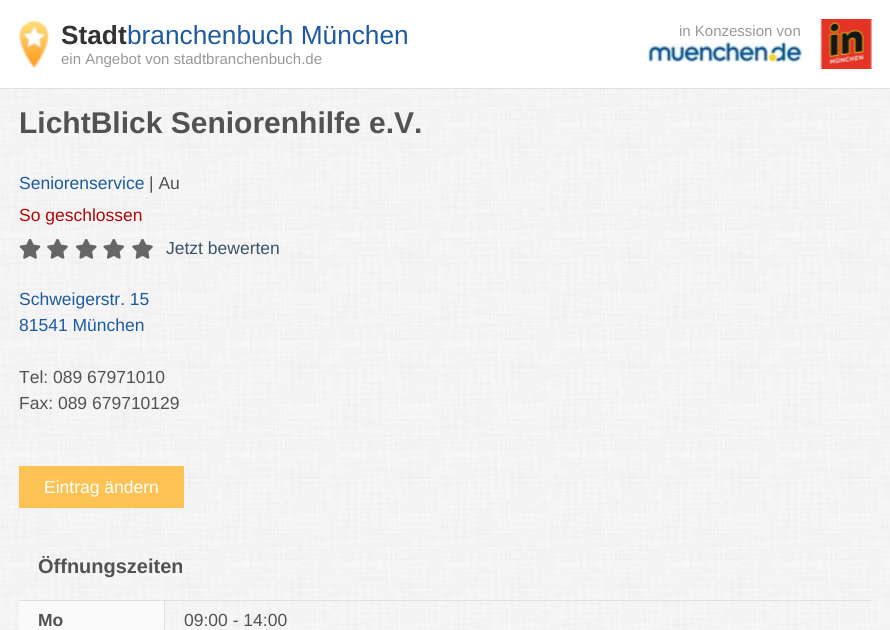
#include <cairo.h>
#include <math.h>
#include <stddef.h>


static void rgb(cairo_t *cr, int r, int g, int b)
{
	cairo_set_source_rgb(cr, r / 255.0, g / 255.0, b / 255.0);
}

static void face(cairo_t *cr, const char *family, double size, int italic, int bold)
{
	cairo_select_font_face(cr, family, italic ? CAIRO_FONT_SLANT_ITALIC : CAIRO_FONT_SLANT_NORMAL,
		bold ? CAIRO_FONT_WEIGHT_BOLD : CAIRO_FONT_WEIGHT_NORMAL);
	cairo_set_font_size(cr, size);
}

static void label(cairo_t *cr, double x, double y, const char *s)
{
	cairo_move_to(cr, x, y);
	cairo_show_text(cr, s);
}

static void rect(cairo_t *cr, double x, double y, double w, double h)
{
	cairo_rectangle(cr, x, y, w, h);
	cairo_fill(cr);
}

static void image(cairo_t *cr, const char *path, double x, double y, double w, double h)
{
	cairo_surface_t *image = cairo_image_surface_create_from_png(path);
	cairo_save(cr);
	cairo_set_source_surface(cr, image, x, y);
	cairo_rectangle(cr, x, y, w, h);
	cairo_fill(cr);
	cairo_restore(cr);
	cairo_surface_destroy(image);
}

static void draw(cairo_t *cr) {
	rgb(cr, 255, 255, 255);
	cairo_paint(cr);
	image(cr, "image0.png", 0, 89, 890, 541);
	rgb(cr, 224, 224, 224);
	rect(cr, 0, 88, 890, 1);
	image(cr, "image1.png", 19, 20, 30, 48);
	face(cr, "Liberation Sans", 26.25, 0, 1);
	rgb(cr, 51, 51, 51);
	label(cr, 61, 44, "Stadt");
	face(cr, "Liberation Sans", 26.25, 0, 0);
	rgb(cr, 29, 90, 159);
	label(cr, 127, 44, "branchenbuch München");
	face(cr, "Liberation Sans", 15, 0, 0);
	rgb(cr, 153, 153, 153);
	label(cr, 61, 64, "ein Angebot von stadtbranchenbuch.de");
	label(cr, 679, 36, "in Konzession von");
	image(cr, "image2.png", 648, 41, 154, 21);
	image(cr, "image3.png", 820, 19, 52, 50);
	face(cr, "Liberation Sans", 30, 0, 1);
	rgb(cr, 82, 82, 82);
	label(cr, 19, 133, "LichtBlick Seniorenhilfe e.V.");
	face(cr, "Liberation Sans", 17.5, 0, 0);
	rgb(cr, 29, 90, 159);
	label(cr, 19, 189, "Seniorenservice");
	rgb(cr, 82, 82, 82);
	label(cr, 149, 189, "| Au");
	rgb(cr, 179, 5, 5);
	label(cr, 19, 221, "So geschlossen");
	image(cr, "image4.png", 19, 239, 22, 20);
	image(cr, "image5.png", 47, 239, 21, 20);
	image(cr, "image6.png", 76, 239, 21, 20);
	image(cr, "image7.png", 103, 239, 21, 20);
	image(cr, "image8.png", 132, 239, 21, 20);
	rgb(cr, 58, 83, 104);
	label(cr, 166, 254, "Jetzt bewerten");
	rgb(cr, 29, 90, 159);
	label(cr, 19, 305, "Schweigerstr. 15");
	label(cr, 19, 331, "81541 München");
	rgb(cr, 82, 82, 82);
	label(cr, 19, 383, "Tel: 089 67971010");
	label(cr, 19, 409, "Fax: 089 679710129");
	rgb(cr, 252, 195, 84);
	rect(cr, 19, 466, 165, 42);
	rgb(cr, 255, 255, 255);
	label(cr, 44, 493, "Eintrag ändern");
	rgb(cr, 224, 224, 224);
	rect(cr, 19, 600, 852, 1);
	face(cr, "Liberation Sans", 20, 0, 1);
	rgb(cr, 82, 82, 82);
	label(cr, 38, 573, "Öffnungszeiten");
	rgb(cr, 250, 250, 250);
	rect(cr, 19, 601, 145, 29);
	face(cr, "Liberation Sans", 17.5, 0, 1);
	rgb(cr, 82, 82, 82);
	label(cr, 38, 626, "Mo");
	rgb(cr, 224, 224, 224);
	rect(cr, 164, 601, 1, 29);
	face(cr, "Liberation Sans", 17.5, 0, 0);
	rgb(cr, 82, 82, 82);
	label(cr, 184, 626, "09:00 - 14:00");
}

int main(void) {
	cairo_surface_t *surface = cairo_image_surface_create(CAIRO_FORMAT_RGB24, 890, 630);
	cairo_t *cr = cairo_create(surface);
	cairo_font_options_t *options = cairo_font_options_create();
	cairo_font_options_set_hint_metrics(options, CAIRO_HINT_METRICS_OFF);
	cairo_font_options_set_hint_style(options, CAIRO_HINT_STYLE_NONE);
	cairo_set_font_options(cr, options);
	cairo_set_miter_limit(cr, 4);
	draw(cr);
	cairo_surface_write_to_png(surface, "render.png");
	cairo_font_options_destroy(options);
	cairo_destroy(cr);
	cairo_surface_destroy(surface);
	return 0;
}
